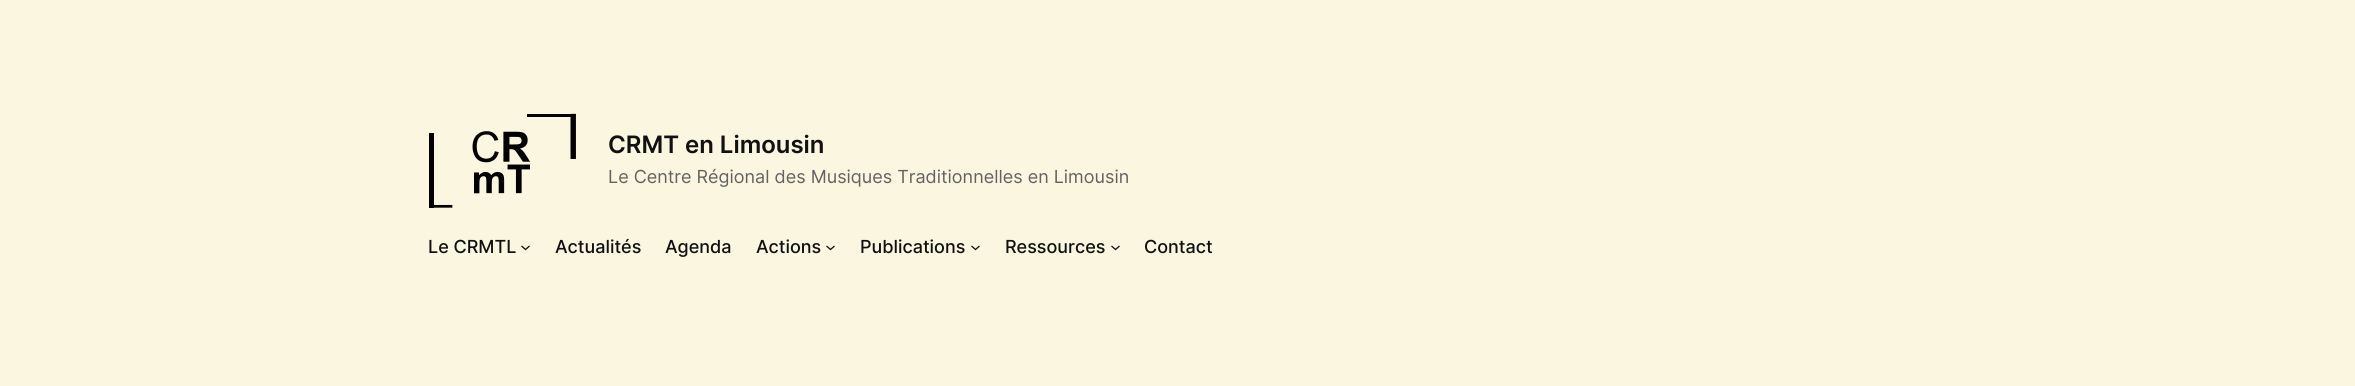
#include <cairo.h>
#include <math.h>
#include <stddef.h>


static void rgb(cairo_t *cr, int r, int g, int b)
{
	cairo_set_source_rgb(cr, r / 255.0, g / 255.0, b / 255.0);
}

static void face(cairo_t *cr, const char *family, double size, int italic, int bold)
{
	cairo_select_font_face(cr, family, italic ? CAIRO_FONT_SLANT_ITALIC : CAIRO_FONT_SLANT_NORMAL,
		bold ? CAIRO_FONT_WEIGHT_BOLD : CAIRO_FONT_WEIGHT_NORMAL);
	cairo_set_font_size(cr, size);
}

static void label(cairo_t *cr, double x, double y, const char *s)
{
	cairo_move_to(cr, x, y);
	cairo_show_text(cr, s);
}

static void image(cairo_t *cr, const char *path, double x, double y, double w, double h)
{
	cairo_surface_t *image = cairo_image_surface_create_from_png(path);
	cairo_save(cr);
	cairo_set_source_surface(cr, image, x, y);
	cairo_rectangle(cr, x, y, w, h);
	cairo_fill(cr);
	cairo_restore(cr);
	cairo_surface_destroy(image);
}

static void draw(cairo_t *cr) {
	rgb(cr, 251, 246, 223);
	cairo_paint(cr);
	image(cr, "image0.png", 429, 113, 147, 95);
	face(cr, "Inter SemiBold", 24, 0, 0);
	rgb(cr, 17, 17, 17);
	label(cr, 608, 153, "CRMT en Limousin");
	face(cr, "Inter", 18, 0, 0);
	rgb(cr, 99, 99, 99);
	label(cr, 608, 183, "Le Centre Régional des Musiques Traditionnelles en Limousin");
	face(cr, "Inter Medium", 18, 0, 0);
	rgb(cr, 17, 17, 17);
	label(cr, 428, 253, "Le CRMTL");
	cairo_new_path(cr);
	cairo_move_to(cr, 521.5, 246);
	cairo_line_to(cr, 525.5, 249.5);
	cairo_line_to(cr, 529.5, 246);
	cairo_set_line_width(cr, 1.3);
	cairo_stroke(cr);
	label(cr, 555, 253, "Actualités");
	label(cr, 665, 253, "Agenda");
	label(cr, 756, 253, "Actions");
	cairo_new_path(cr);
	cairo_move_to(cr, 826.5, 246);
	cairo_line_to(cr, 830.5, 249.5);
	cairo_line_to(cr, 834.5, 246);
	cairo_stroke(cr);
	label(cr, 860, 253, "Publications");
	cairo_new_path(cr);
	cairo_move_to(cr, 971.5, 246);
	cairo_line_to(cr, 975.5, 249.5);
	cairo_line_to(cr, 979.5, 246);
	cairo_stroke(cr);
	label(cr, 1005, 253, "Ressources");
	cairo_new_path(cr);
	cairo_move_to(cr, 1111.5, 246);
	cairo_line_to(cr, 1115.5, 249.5);
	cairo_line_to(cr, 1119.5, 246);
	cairo_stroke(cr);
	label(cr, 1144, 253, "Contact");
}

int main(void) {
	cairo_surface_t *surface = cairo_image_surface_create(CAIRO_FORMAT_RGB24, 2355, 386);
	cairo_t *cr = cairo_create(surface);
	cairo_font_options_t *options = cairo_font_options_create();
	cairo_font_options_set_hint_metrics(options, CAIRO_HINT_METRICS_OFF);
	cairo_font_options_set_hint_style(options, CAIRO_HINT_STYLE_NONE);
	cairo_set_font_options(cr, options);
	cairo_set_miter_limit(cr, 4);
	draw(cr);
	cairo_surface_write_to_png(surface, "render.png");
	cairo_font_options_destroy(options);
	cairo_destroy(cr);
	cairo_surface_destroy(surface);
	return 0;
}
